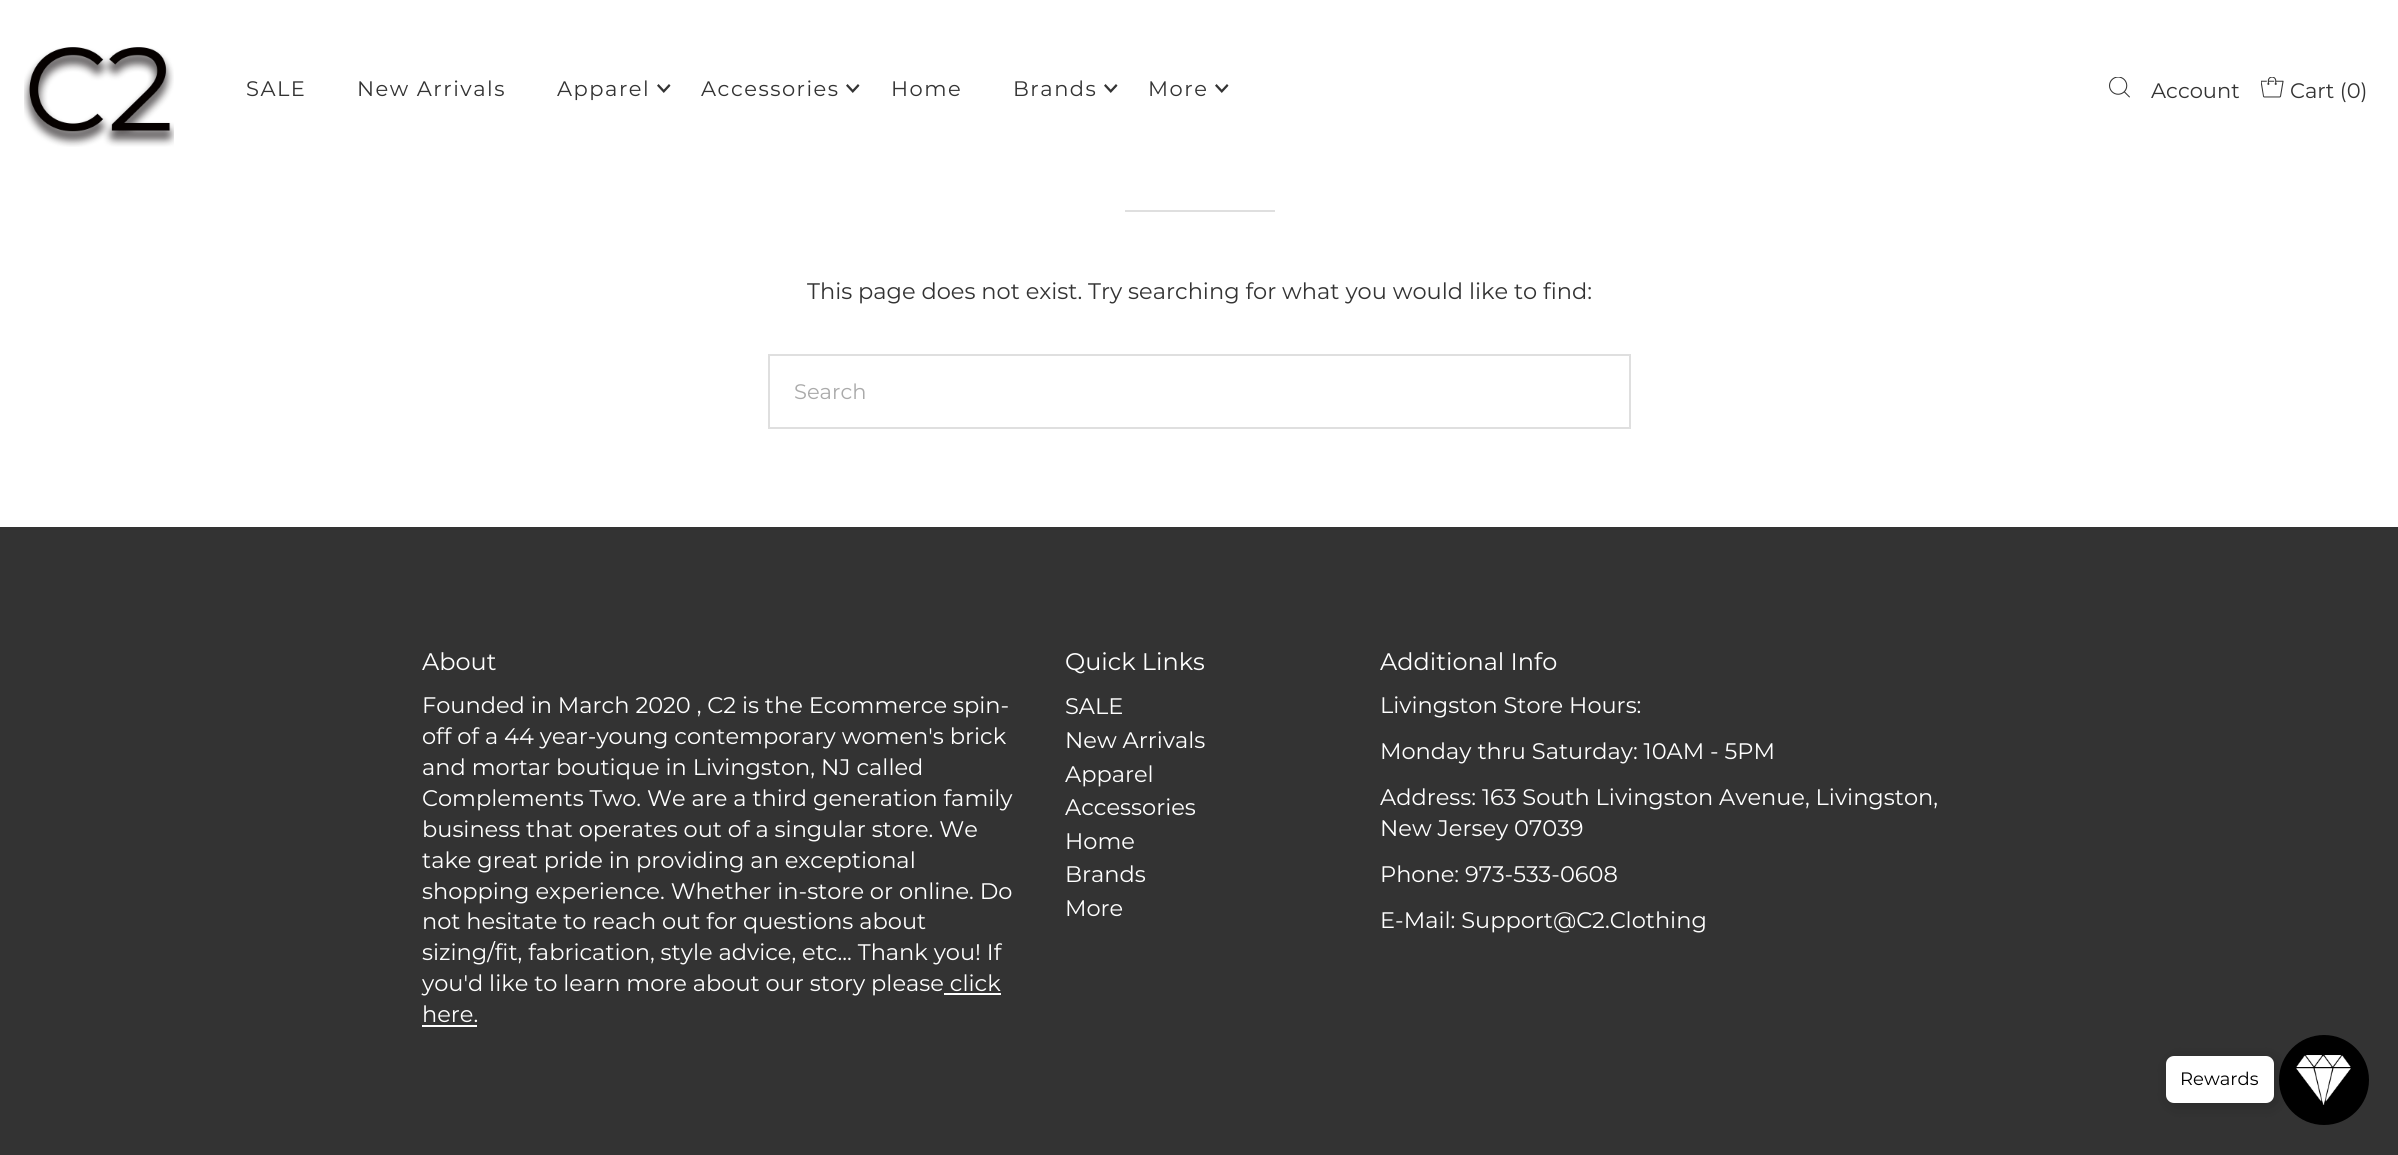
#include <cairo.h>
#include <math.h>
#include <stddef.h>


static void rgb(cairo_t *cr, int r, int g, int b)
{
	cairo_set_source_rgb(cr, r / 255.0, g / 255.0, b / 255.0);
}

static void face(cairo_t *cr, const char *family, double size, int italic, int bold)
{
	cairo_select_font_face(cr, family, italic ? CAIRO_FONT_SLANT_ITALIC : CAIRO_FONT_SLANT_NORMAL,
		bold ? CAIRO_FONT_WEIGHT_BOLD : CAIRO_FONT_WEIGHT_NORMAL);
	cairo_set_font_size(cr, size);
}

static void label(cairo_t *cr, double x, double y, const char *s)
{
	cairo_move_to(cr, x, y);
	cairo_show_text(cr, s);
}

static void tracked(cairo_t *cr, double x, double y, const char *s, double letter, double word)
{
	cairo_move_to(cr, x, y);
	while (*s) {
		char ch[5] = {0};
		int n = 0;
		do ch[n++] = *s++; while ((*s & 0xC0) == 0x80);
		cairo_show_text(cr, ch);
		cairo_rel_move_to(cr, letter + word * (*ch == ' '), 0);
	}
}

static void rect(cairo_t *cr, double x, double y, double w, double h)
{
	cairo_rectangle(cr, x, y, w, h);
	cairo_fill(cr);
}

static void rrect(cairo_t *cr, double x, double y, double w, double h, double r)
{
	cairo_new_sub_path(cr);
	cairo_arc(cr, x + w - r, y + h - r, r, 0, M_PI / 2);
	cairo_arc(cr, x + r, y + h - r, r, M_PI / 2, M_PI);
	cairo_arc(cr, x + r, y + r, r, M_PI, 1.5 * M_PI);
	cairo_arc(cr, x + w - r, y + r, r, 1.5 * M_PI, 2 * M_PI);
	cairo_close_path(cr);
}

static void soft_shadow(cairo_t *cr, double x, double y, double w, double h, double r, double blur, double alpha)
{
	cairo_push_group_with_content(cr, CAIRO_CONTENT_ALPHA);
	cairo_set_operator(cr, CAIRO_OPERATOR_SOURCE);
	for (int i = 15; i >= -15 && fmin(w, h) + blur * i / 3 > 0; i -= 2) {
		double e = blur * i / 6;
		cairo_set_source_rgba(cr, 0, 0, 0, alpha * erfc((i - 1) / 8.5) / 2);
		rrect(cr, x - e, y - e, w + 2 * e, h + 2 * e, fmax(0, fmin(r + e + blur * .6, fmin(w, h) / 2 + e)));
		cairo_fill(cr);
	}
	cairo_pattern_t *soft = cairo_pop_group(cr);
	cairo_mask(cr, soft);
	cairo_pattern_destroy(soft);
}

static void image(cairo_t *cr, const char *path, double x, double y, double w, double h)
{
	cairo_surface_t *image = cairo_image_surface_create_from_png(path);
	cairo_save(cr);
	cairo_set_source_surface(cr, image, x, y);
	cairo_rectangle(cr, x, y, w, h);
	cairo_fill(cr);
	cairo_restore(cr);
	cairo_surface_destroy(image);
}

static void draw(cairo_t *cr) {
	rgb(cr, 255, 255, 255);
	cairo_paint(cr);
	image(cr, "image0.png", 24, 47, 150, 100);
	face(cr, "Montserrat", 21, 0, 0);
	rgb(cr, 51, 51, 51);
	tracked(cr, 246, 96, "SALE", 1.5, 0);
	tracked(cr, 357, 96, "New Arrivals", 1.5, 0);
	tracked(cr, 557, 96, "Apparel", 1.5, 0);
	image(cr, "image1.png", 657, 84, 14, 9);
	tracked(cr, 701, 96, "Accessories", 1.5, 0);
	image(cr, "image1.png", 846, 84, 14, 9);
	tracked(cr, 891, 96, "Home", 1.5, 0);
	tracked(cr, 1013, 96, "Brands", 1.5, 0);
	image(cr, "image1.png", 1104, 84, 14, 9);
	tracked(cr, 1148, 96, "More", 1.5, 0);
	image(cr, "image1.png", 1215, 84, 14, 9);
	image(cr, "image2.png", 2109, 77, 21, 21);
	label(cr, 2151, 98, "Account");
	image(cr, "image3.png", 2261, 77, 23, 21);
	label(cr, 2290, 98, "Cart (0)");
	rgb(cr, 223, 223, 223);
	rect(cr, 1125, 210, 150, 2);
	face(cr, "Montserrat", 22.5, 0, 0);
	rgb(cr, 51, 51, 51);
	label(cr, 807, 299, "This page does not exist. Try searching for what you would like to find:");
	cairo_rectangle(cr, 769, 355, 861, 73);
	rgb(cr, 223, 223, 223);
	cairo_stroke(cr);
	face(cr, "Montserrat", 21, 0, 0);
	rgb(cr, 170, 170, 170);
	label(cr, 794, 399, "Search");
	rgb(cr, 51, 51, 51);
	rect(cr, 0, 527, 2398, 628);
	face(cr, "Montserrat", 24, 0, 0);
	rgb(cr, 255, 255, 255);
	label(cr, 422, 670, "About");
	face(cr, "Montserrat", 22.5, 0, 0);
	label(cr, 422, 713, "Founded in March 2020 , C2 is the Ecommerce spin-");
	label(cr, 422, 744, "off of a 44 year-young contemporary women's brick");
	label(cr, 422, 775, "and mortar boutique in Livingston, NJ called");
	label(cr, 422, 806, "Complements Two. We are a third generation family");
	label(cr, 422, 837, "business that operates out of a singular store. We");
	label(cr, 422, 868, "take great pride in providing an exceptional");
	label(cr, 422, 899, "shopping experience. Whether in-store or online. Do");
	label(cr, 422, 929, "not hesitate to reach out for questions about");
	label(cr, 422, 960, "sizing/fit, fabrication, style advice, etc... Thank you! If");
	label(cr, 422, 991, "you'd like to learn more about our story please click");
	label(cr, 422, 1022, "here.");
	rect(cr, 944, 993, 57, 2);
	rect(cr, 422, 1025, 55, 2);
	face(cr, "Montserrat", 24, 0, 0);
	label(cr, 1065, 670, "Quick Links");
	face(cr, "Montserrat", 22.5, 0, 0);
	label(cr, 1065, 714, "SALE");
	label(cr, 1065, 748, "New Arrivals");
	label(cr, 1065, 782, "Apparel");
	label(cr, 1065, 815, "Accessories");
	label(cr, 1065, 849, "Home");
	label(cr, 1065, 882, "Brands");
	label(cr, 1065, 916, "More");
	face(cr, "Montserrat", 24, 0, 0);
	label(cr, 1380, 670, "Additional Info");
	face(cr, "Montserrat", 22.5, 0, 0);
	label(cr, 1380, 713, "Livingston Store Hours:");
	label(cr, 1380, 759, "Monday thru Saturday: 10AM - 5PM");
	label(cr, 1380, 805, "Address: 163 South Livingston Avenue, Livingston,");
	label(cr, 1380, 836, "New Jersey 07039");
	label(cr, 1380, 882, "Phone: 973-533-0608");
	label(cr, 1380, 928, "E-Mail: Support@C2.Clothing");
	rgb(cr, 0, 0, 0);
	cairo_new_path(cr);
	cairo_arc(cr, 2324, 1080, 45, 0, 2 * M_PI);
	cairo_fill(cr);
	image(cr, "image4.png", 2296, 1055, 55, 50);
	rgb(cr, 0, 0, 0);
	soft_shadow(cr, 2169, 1059, 108, 47, 8, 7.5, 0.2);
	rgb(cr, 255, 255, 255);
	rrect(cr, 2166, 1056, 108, 47, 8);
	cairo_fill(cr);
	face(cr, "Montserrat", 18, 0, 0);
	rgb(cr, 0, 0, 0);
	label(cr, 2180, 1085, "Rewards");
}

int main(void) {
	cairo_surface_t *surface = cairo_image_surface_create(CAIRO_FORMAT_RGB24, 2398, 1155);
	cairo_t *cr = cairo_create(surface);
	cairo_font_options_t *options = cairo_font_options_create();
	cairo_font_options_set_hint_metrics(options, CAIRO_HINT_METRICS_OFF);
	cairo_font_options_set_hint_style(options, CAIRO_HINT_STYLE_NONE);
	cairo_set_font_options(cr, options);
	cairo_set_miter_limit(cr, 4);
	draw(cr);
	cairo_surface_write_to_png(surface, "render.png");
	cairo_font_options_destroy(options);
	cairo_destroy(cr);
	cairo_surface_destroy(surface);
	return 0;
}
